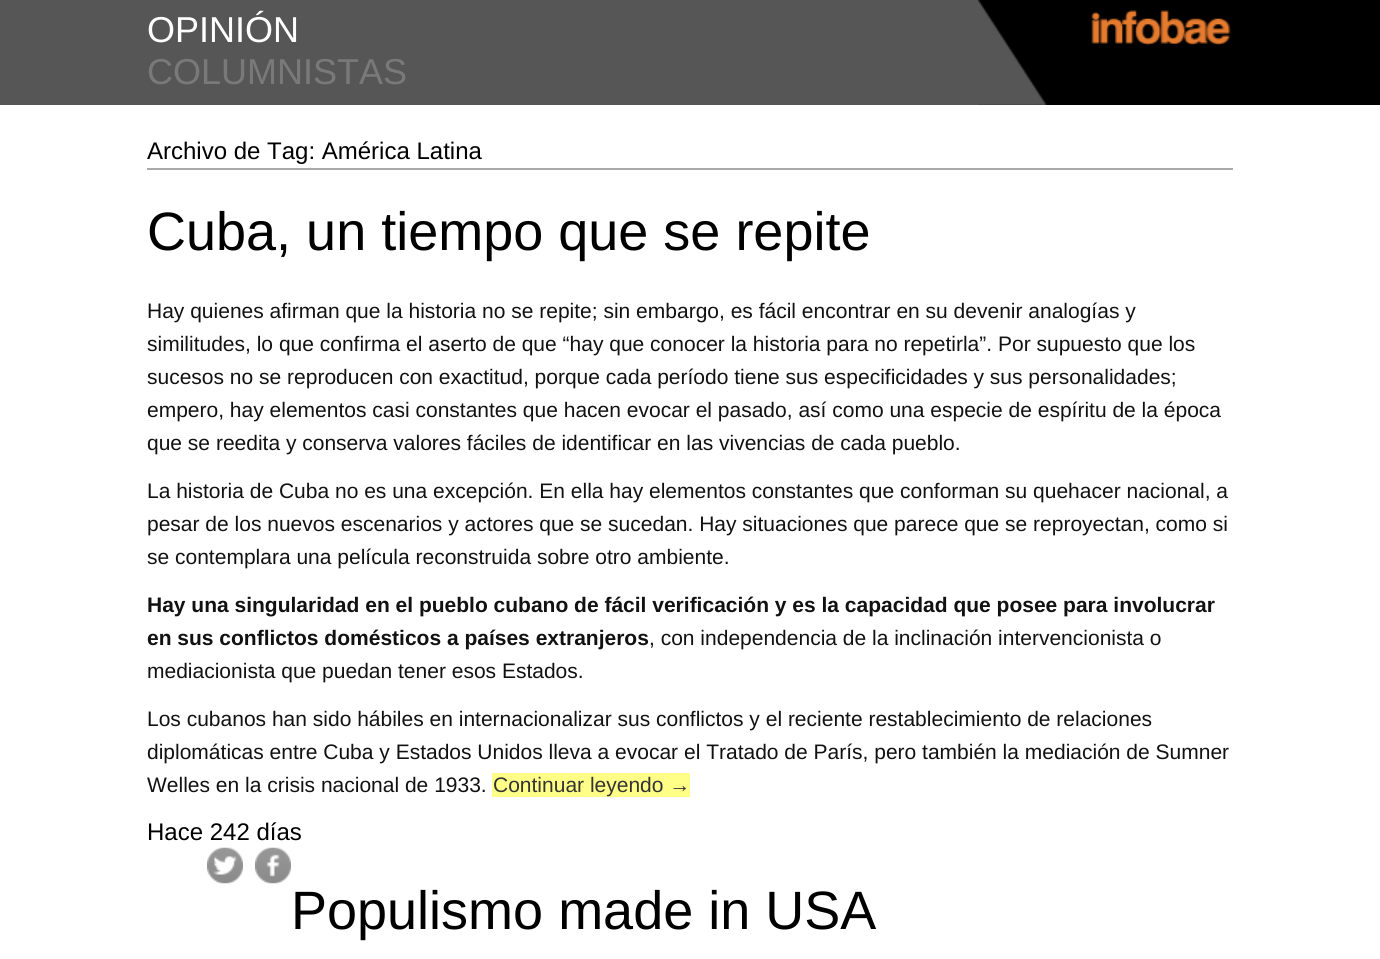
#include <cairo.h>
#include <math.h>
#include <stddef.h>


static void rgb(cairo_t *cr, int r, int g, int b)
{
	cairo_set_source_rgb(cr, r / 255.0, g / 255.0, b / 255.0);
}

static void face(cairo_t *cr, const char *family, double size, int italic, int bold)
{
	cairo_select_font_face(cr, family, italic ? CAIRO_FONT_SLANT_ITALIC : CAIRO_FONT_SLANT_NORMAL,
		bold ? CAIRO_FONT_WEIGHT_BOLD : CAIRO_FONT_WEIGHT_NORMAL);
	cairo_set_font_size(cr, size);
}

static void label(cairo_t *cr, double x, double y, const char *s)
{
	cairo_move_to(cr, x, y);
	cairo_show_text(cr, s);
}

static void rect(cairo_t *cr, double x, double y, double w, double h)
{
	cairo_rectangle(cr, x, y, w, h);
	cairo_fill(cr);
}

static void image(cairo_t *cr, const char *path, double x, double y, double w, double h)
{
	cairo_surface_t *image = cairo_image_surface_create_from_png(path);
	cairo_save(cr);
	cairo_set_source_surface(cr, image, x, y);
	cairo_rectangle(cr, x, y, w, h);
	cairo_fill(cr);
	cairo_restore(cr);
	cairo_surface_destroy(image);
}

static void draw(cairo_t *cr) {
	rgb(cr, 255, 255, 255);
	cairo_paint(cr);
	rgb(cr, 86, 86, 86);
	rect(cr, 0, 0, 978, 105);
	face(cr, "Liberation Sans", 36, 0, 0);
	rgb(cr, 255, 255, 255);
	label(cr, 147, 42, "OPINIÓN");
	rgb(cr, 0, 0, 0);
	rect(cr, 978, 0, 402, 105);
	image(cr, "image0.png", 978, 0, 69, 105);
	image(cr, "image1.png", 1091, 10, 141, 35);
	rgb(cr, 121, 121, 121);
	label(cr, 147, 84, "COLUMNISTAS");
	rgb(cr, 170, 170, 170);
	rect(cr, 147, 168, 1086, 2);
	face(cr, "Liberation Sans", 24, 0, 0);
	rgb(cr, 0, 0, 0);
	label(cr, 147, 159, "Archivo de Tag: América Latina");
	face(cr, "Liberation Sans", 54, 0, 0);
	label(cr, 147, 250, "Cuba, un tiempo que se repite");
	face(cr, "Liberation Sans", 21, 0, 0);
	rgb(cr, 17, 17, 17);
	label(cr, 147, 318, "Hay quienes afirman que la historia no se repite; sin embargo, es fácil encontrar en su devenir analogías y");
	label(cr, 147, 351, "similitudes, lo que confirma el aserto de que “hay que conocer la historia para no repetirla”. Por supuesto que los");
	label(cr, 147, 384, "sucesos no se reproducen con exactitud, porque cada período tiene sus especificidades y sus personalidades;");
	label(cr, 147, 417, "empero, hay elementos casi constantes que hacen evocar el pasado, así como una especie de espíritu de la época");
	label(cr, 147, 450, "que se reedita y conserva valores fáciles de identificar en las vivencias de cada pueblo.");
	label(cr, 147, 498, "La historia de Cuba no es una excepción. En ella hay elementos constantes que conforman su quehacer nacional, a");
	label(cr, 147, 531, "pesar de los nuevos escenarios y actores que se sucedan. Hay situaciones que parece que se reproyectan, como si");
	label(cr, 147, 564, "se contemplara una película reconstruida sobre otro ambiente.");
	face(cr, "Liberation Sans", 21, 0, 1);
	label(cr, 147, 612, "Hay una singularidad en el pueblo cubano de fácil verificación y es la capacidad que posee para involucrar");
	label(cr, 147, 645, "en sus conflictos domésticos a países extranjeros");
	face(cr, "Liberation Sans", 21, 0, 0);
	label(cr, 649, 645, ", con independencia de la inclinación intervencionista o");
	label(cr, 147, 678, "mediacionista que puedan tener esos Estados.");
	label(cr, 147, 726, "Los cubanos han sido hábiles en internacionalizar sus conflictos y el reciente restablecimiento de relaciones");
	label(cr, 147, 759, "diplomáticas entre Cuba y Estados Unidos lleva a evocar el Tratado de París, pero también la mediación de Sumner");
	label(cr, 147, 792, "Welles en la crisis nacional de 1933.");
	rgb(cr, 255, 255, 136);
	rect(cr, 492, 773, 198, 24);
	rgb(cr, 51, 51, 51);
	label(cr, 493, 792, "Continuar leyendo →");
	face(cr, "Liberation Sans", 24, 0, 0);
	rgb(cr, 0, 0, 0);
	label(cr, 147, 840, "Hace 242 días");
	image(cr, "image2.png", 207, 847, 36, 37);
	image(cr, "image3.png", 255, 847, 36, 37);
	face(cr, "Liberation Sans", 54, 0, 0);
	label(cr, 291, 929, "Populismo made in USA");
}

int main(void) {
	cairo_surface_t *surface = cairo_image_surface_create(CAIRO_FORMAT_RGB24, 1380, 959);
	cairo_t *cr = cairo_create(surface);
	cairo_font_options_t *options = cairo_font_options_create();
	cairo_font_options_set_hint_metrics(options, CAIRO_HINT_METRICS_OFF);
	cairo_font_options_set_hint_style(options, CAIRO_HINT_STYLE_NONE);
	cairo_set_font_options(cr, options);
	cairo_set_miter_limit(cr, 4);
	draw(cr);
	cairo_surface_write_to_png(surface, "render.png");
	cairo_font_options_destroy(options);
	cairo_destroy(cr);
	cairo_surface_destroy(surface);
	return 0;
}
